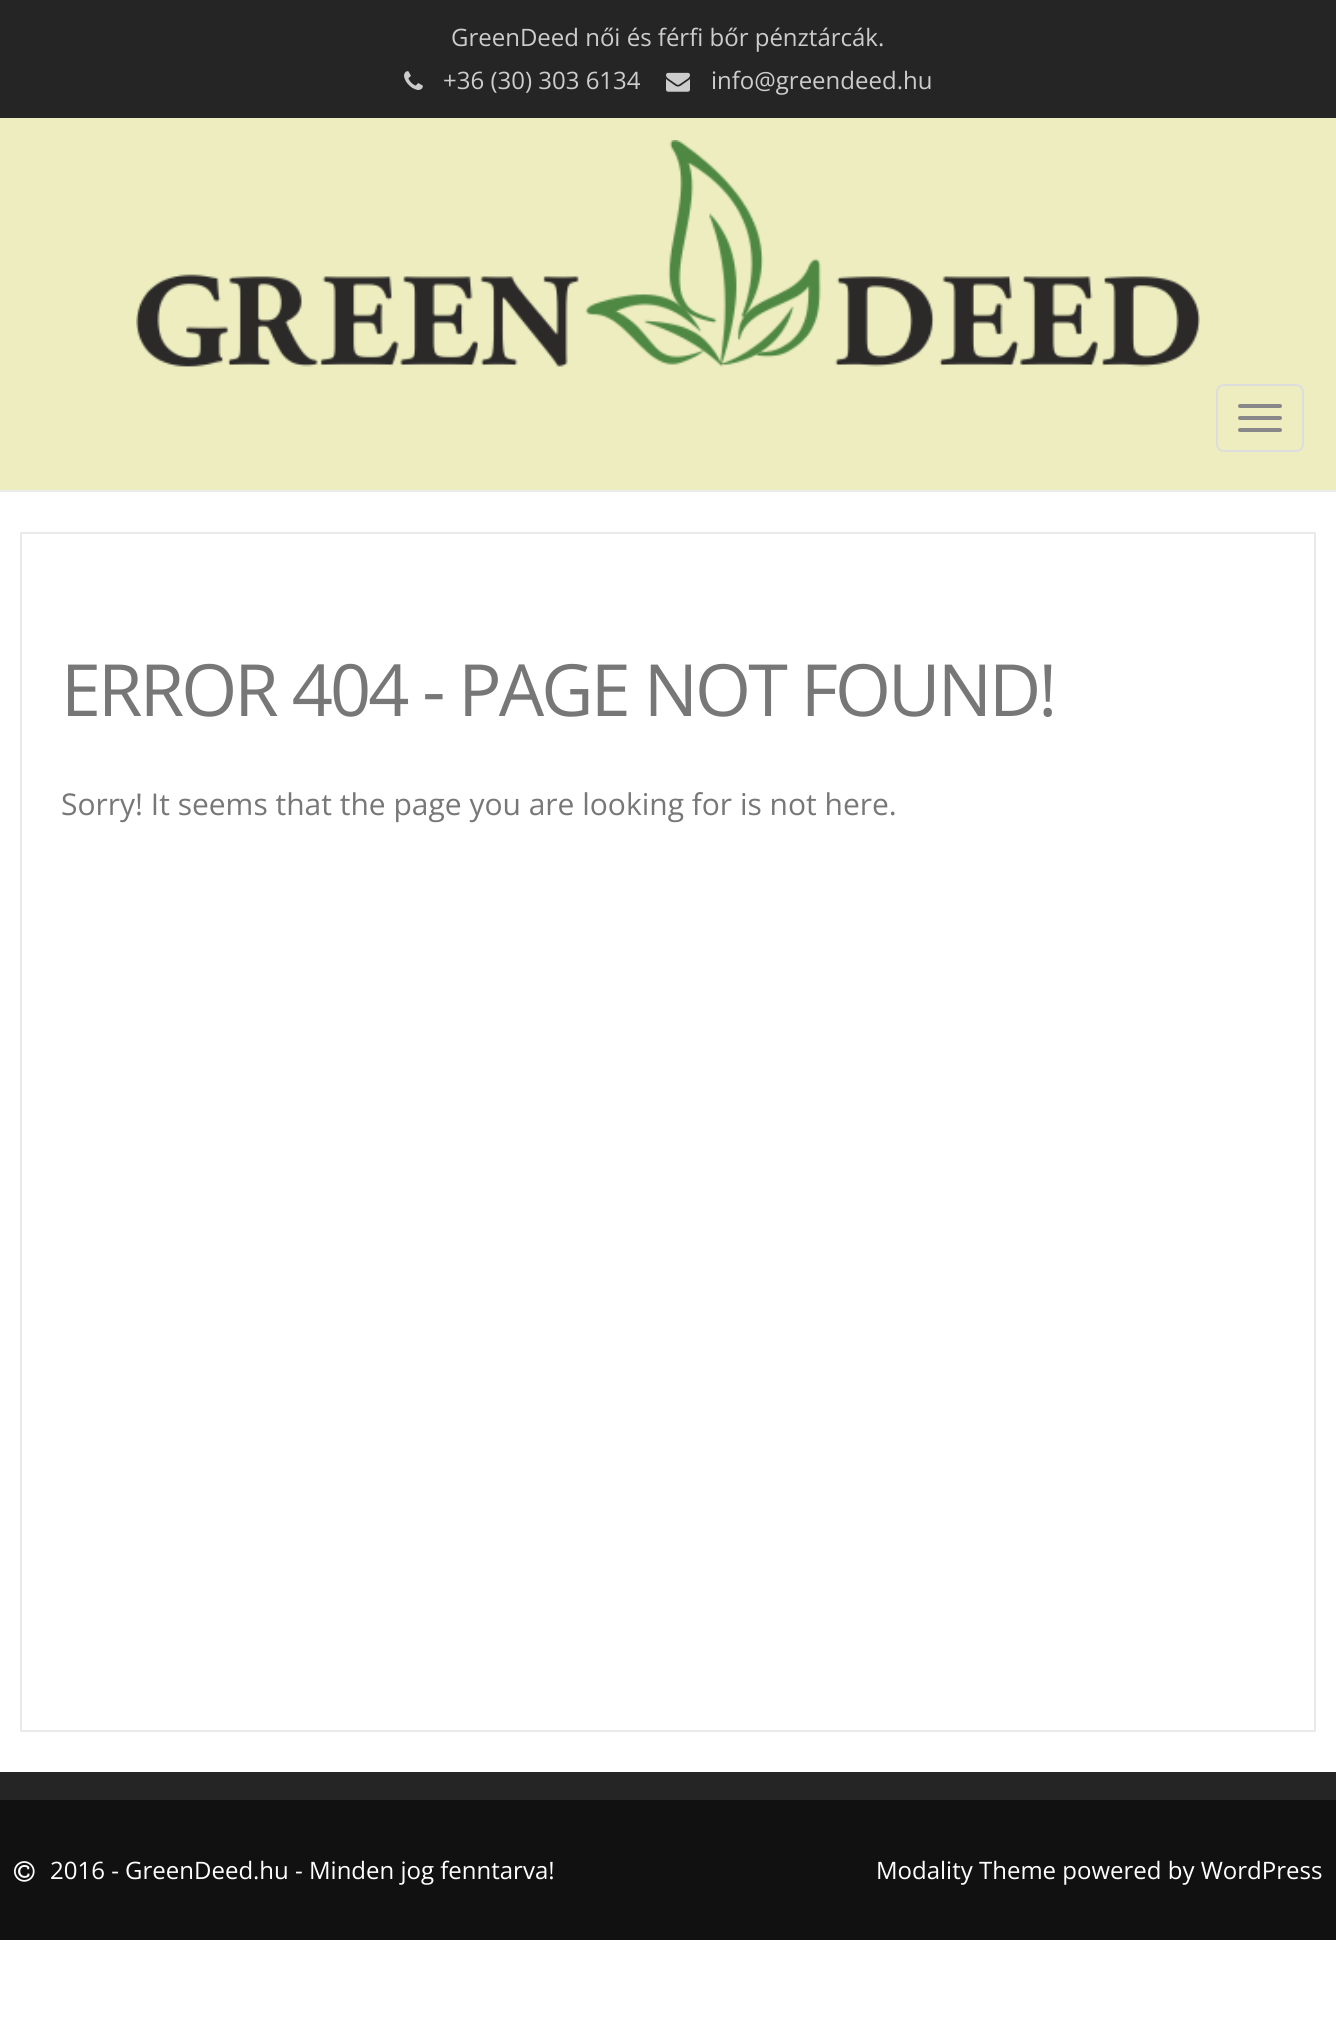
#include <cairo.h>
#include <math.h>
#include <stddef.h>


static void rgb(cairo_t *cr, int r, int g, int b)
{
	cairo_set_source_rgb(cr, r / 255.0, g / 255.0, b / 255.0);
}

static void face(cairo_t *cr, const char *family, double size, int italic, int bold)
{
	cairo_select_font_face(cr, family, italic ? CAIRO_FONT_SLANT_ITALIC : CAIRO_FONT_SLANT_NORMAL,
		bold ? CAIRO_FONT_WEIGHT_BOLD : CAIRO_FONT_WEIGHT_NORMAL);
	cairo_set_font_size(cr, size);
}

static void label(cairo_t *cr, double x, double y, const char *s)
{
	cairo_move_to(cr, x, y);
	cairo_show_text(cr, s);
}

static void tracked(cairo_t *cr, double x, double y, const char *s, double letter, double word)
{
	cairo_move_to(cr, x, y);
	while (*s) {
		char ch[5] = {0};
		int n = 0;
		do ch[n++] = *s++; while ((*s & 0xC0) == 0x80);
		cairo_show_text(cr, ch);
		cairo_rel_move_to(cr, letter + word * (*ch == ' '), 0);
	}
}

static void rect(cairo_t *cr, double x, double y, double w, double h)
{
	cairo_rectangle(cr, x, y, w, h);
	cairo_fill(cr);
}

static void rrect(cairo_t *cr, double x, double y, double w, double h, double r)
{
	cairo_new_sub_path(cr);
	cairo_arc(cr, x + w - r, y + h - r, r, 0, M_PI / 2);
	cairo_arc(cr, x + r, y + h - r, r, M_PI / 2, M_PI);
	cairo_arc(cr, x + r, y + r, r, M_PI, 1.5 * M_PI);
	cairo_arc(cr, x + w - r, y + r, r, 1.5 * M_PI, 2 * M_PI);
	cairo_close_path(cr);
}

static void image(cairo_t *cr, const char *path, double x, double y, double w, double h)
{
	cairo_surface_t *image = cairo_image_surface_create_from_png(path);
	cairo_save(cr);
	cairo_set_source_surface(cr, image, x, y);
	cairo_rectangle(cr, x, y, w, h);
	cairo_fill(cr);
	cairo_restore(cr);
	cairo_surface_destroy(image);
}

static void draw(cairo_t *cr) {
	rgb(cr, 255, 255, 255);
	cairo_paint(cr);
	rgb(cr, 37, 37, 37);
	rect(cr, 0, 0, 1336, 118);
	face(cr, "Open Sans", 24, 0, 0);
	rgb(cr, 204, 204, 204);
	label(cr, 451, 46, "GreenDeed női és férfi bőr pénztárcák.");
	image(cr, "image0.png", 404, 71, 19, 19);
	label(cr, 443, 89, "+36 (30) 303 6134");
	image(cr, "image1.png", 666, 72, 24, 20);
	label(cr, 711, 89, "info@greendeed.hu");
	rgb(cr, 237, 237, 192);
	rect(cr, 0, 118, 1336, 372);
	rgb(cr, 234, 234, 234);
	rect(cr, 0, 490, 1336, 2);
	image(cr, "image2.png", 136, 140, 1064, 227);
	rrect(cr, 1217, 385, 86, 66, 7);
	rgb(cr, 221, 221, 221);
	cairo_stroke(cr);
	rgb(cr, 136, 136, 136);
	rrect(cr, 1238, 404, 44, 4, 2);
	cairo_fill(cr);
	rrect(cr, 1238, 416, 44, 4, 2);
	cairo_fill(cr);
	rrect(cr, 1238, 428, 44, 4, 2);
	cairo_fill(cr);
	cairo_rectangle(cr, 21, 533, 1294, 1198);
	rgb(cr, 234, 234, 234);
	cairo_stroke(cr);
	face(cr, "Open Sans", 72, 0, 0);
	rgb(cr, 119, 119, 119);
	tracked(cr, 61, 716, "ERROR 404 - PAGE NOT FOUND!", -2.9, 0);
	face(cr, "Open Sans", 30, 0, 0);
	label(cr, 61, 815, "Sorry! It seems that the page you are looking for is not here.");
	rgb(cr, 37, 37, 37);
	rect(cr, 0, 1772, 1336, 28);
	rgb(cr, 17, 17, 17);
	rect(cr, 0, 1800, 1336, 140);
	image(cr, "image3.png", 14, 1861, 21, 21);
	face(cr, "Open Sans", 24, 0, 0);
	rgb(cr, 255, 255, 255);
	label(cr, 50, 1879, "2016 - GreenDeed.hu - Minden jog fenntarva!");
	label(cr, 876, 1879, "Modality Theme powered by WordPress");
}

int main(void) {
	cairo_surface_t *surface = cairo_image_surface_create(CAIRO_FORMAT_RGB24, 1336, 2037);
	cairo_t *cr = cairo_create(surface);
	cairo_font_options_t *options = cairo_font_options_create();
	cairo_font_options_set_hint_metrics(options, CAIRO_HINT_METRICS_OFF);
	cairo_font_options_set_hint_style(options, CAIRO_HINT_STYLE_NONE);
	cairo_set_font_options(cr, options);
	cairo_set_miter_limit(cr, 4);
	draw(cr);
	cairo_surface_write_to_png(surface, "render.png");
	cairo_font_options_destroy(options);
	cairo_destroy(cr);
	cairo_surface_destroy(surface);
	return 0;
}
